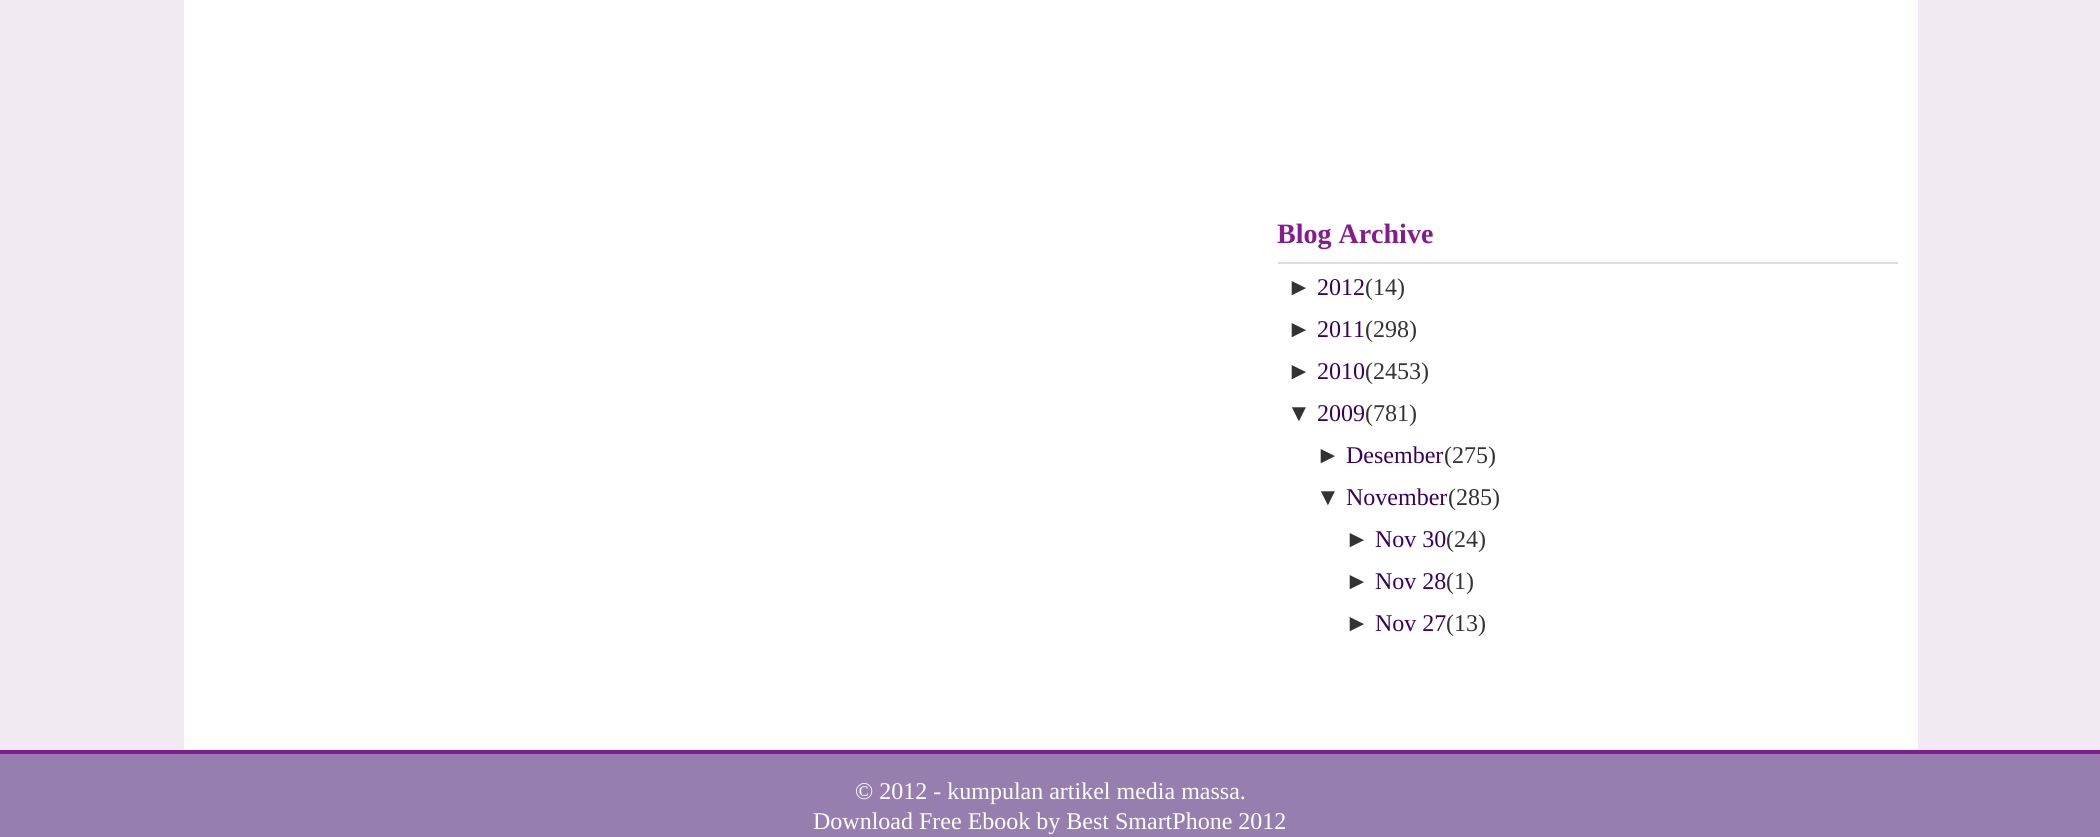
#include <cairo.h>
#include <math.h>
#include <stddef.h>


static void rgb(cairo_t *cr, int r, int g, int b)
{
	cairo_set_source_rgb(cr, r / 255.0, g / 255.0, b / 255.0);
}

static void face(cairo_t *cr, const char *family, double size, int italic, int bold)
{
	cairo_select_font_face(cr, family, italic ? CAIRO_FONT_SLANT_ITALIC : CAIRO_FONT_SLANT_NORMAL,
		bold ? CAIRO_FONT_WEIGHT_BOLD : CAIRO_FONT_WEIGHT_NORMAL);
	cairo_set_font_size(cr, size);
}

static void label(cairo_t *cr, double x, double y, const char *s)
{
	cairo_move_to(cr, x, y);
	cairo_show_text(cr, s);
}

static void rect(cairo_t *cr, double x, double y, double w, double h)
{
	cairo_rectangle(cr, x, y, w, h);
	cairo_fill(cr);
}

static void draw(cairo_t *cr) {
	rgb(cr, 241, 234, 242);
	cairo_paint(cr);
	rgb(cr, 255, 255, 255);
	rect(cr, 184, 0, 1734, 750);
	rgb(cr, 221, 221, 221);
	rect(cr, 1278, 262, 620, 2);
	face(cr, "Liberation Serif", 28, 0, 1);
	rgb(cr, 134, 27, 143);
	label(cr, 1277, 243, "Blog Archive");
	face(cr, "Liberation Sans", 24, 0, 0);
	rgb(cr, 51, 51, 51);
	label(cr, 1287, 295, "►");
	face(cr, "Liberation Serif", 24, 0, 0);
	rgb(cr, 56, 0, 99);
	label(cr, 1317, 295, "2012");
	rgb(cr, 51, 51, 51);
	label(cr, 1365, 295, "(14)");
	face(cr, "Liberation Sans", 24, 0, 0);
	label(cr, 1287, 337, "►");
	face(cr, "Liberation Serif", 24, 0, 0);
	rgb(cr, 56, 0, 99);
	label(cr, 1317, 337, "2011");
	rgb(cr, 51, 51, 51);
	label(cr, 1365, 337, "(298)");
	face(cr, "Liberation Sans", 24, 0, 0);
	label(cr, 1287, 379, "►");
	face(cr, "Liberation Serif", 24, 0, 0);
	rgb(cr, 56, 0, 99);
	label(cr, 1317, 379, "2010");
	rgb(cr, 51, 51, 51);
	label(cr, 1365, 379, "(2453)");
	face(cr, "Liberation Sans", 24, 0, 0);
	label(cr, 1287, 421, "▼");
	face(cr, "Liberation Serif", 24, 0, 0);
	rgb(cr, 56, 0, 99);
	label(cr, 1317, 421, "2009");
	rgb(cr, 51, 51, 51);
	label(cr, 1365, 421, "(781)");
	face(cr, "Liberation Sans", 24, 0, 0);
	label(cr, 1316, 463, "►");
	face(cr, "Liberation Serif", 24, 0, 0);
	rgb(cr, 56, 0, 99);
	label(cr, 1346, 463, "Desember");
	rgb(cr, 51, 51, 51);
	label(cr, 1444, 463, "(275)");
	face(cr, "Liberation Sans", 24, 0, 0);
	label(cr, 1316, 505, "▼");
	face(cr, "Liberation Serif", 24, 0, 0);
	rgb(cr, 56, 0, 99);
	label(cr, 1346, 505, "November");
	rgb(cr, 51, 51, 51);
	label(cr, 1448, 505, "(285)");
	face(cr, "Liberation Sans", 24, 0, 0);
	label(cr, 1345, 547, "►");
	face(cr, "Liberation Serif", 24, 0, 0);
	rgb(cr, 56, 0, 99);
	label(cr, 1375, 547, "Nov 30");
	rgb(cr, 51, 51, 51);
	label(cr, 1446, 547, "(24)");
	face(cr, "Liberation Sans", 24, 0, 0);
	label(cr, 1345, 589, "►");
	face(cr, "Liberation Serif", 24, 0, 0);
	rgb(cr, 56, 0, 99);
	label(cr, 1375, 589, "Nov 28");
	rgb(cr, 51, 51, 51);
	label(cr, 1446, 589, "(1)");
	face(cr, "Liberation Sans", 24, 0, 0);
	label(cr, 1345, 631, "►");
	face(cr, "Liberation Serif", 24, 0, 0);
	rgb(cr, 56, 0, 99);
	label(cr, 1375, 631, "Nov 27");
	rgb(cr, 51, 51, 51);
	label(cr, 1446, 631, "(13)");
	rgb(cr, 150, 127, 174);
	rect(cr, 0, 754, 2100, 83);
	rgb(cr, 134, 27, 143);
	rect(cr, 0, 750, 2100, 4);
	rgb(cr, 255, 255, 255);
	label(cr, 855, 799, "© 2012 - kumpulan artikel media massa.");
	label(cr, 813, 829, "Download Free Ebook by Best SmartPhone 2012");
}

int main(void) {
	cairo_surface_t *surface = cairo_image_surface_create(CAIRO_FORMAT_RGB24, 2100, 837);
	cairo_t *cr = cairo_create(surface);
	cairo_font_options_t *options = cairo_font_options_create();
	cairo_font_options_set_hint_metrics(options, CAIRO_HINT_METRICS_OFF);
	cairo_font_options_set_hint_style(options, CAIRO_HINT_STYLE_NONE);
	cairo_set_font_options(cr, options);
	cairo_set_miter_limit(cr, 4);
	draw(cr);
	cairo_surface_write_to_png(surface, "render.png");
	cairo_font_options_destroy(options);
	cairo_destroy(cr);
	cairo_surface_destroy(surface);
	return 0;
}
